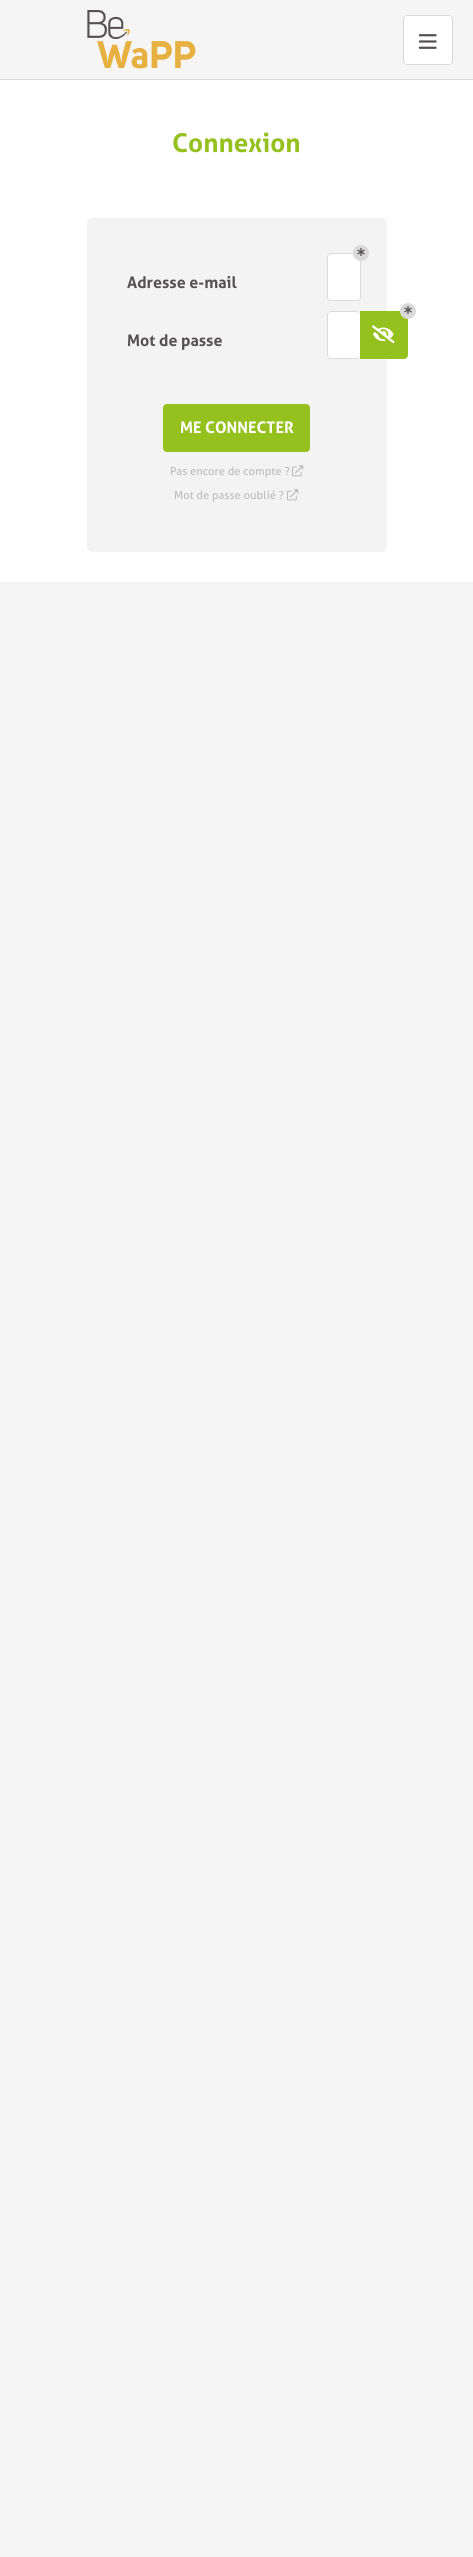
#include <cairo.h>
#include <math.h>
#include <stddef.h>


static void rgb(cairo_t *cr, int r, int g, int b)
{
	cairo_set_source_rgb(cr, r / 255.0, g / 255.0, b / 255.0);
}

static void face(cairo_t *cr, const char *family, double size, int italic, int bold)
{
	cairo_select_font_face(cr, family, italic ? CAIRO_FONT_SLANT_ITALIC : CAIRO_FONT_SLANT_NORMAL,
		bold ? CAIRO_FONT_WEIGHT_BOLD : CAIRO_FONT_WEIGHT_NORMAL);
	cairo_set_font_size(cr, size);
}

static void label(cairo_t *cr, double x, double y, const char *s)
{
	cairo_move_to(cr, x, y);
	cairo_show_text(cr, s);
}

static void rect(cairo_t *cr, double x, double y, double w, double h)
{
	cairo_rectangle(cr, x, y, w, h);
	cairo_fill(cr);
}

static void rrect(cairo_t *cr, double x, double y, double w, double h, double r)
{
	cairo_new_sub_path(cr);
	cairo_arc(cr, x + w - r, y + h - r, r, 0, M_PI / 2);
	cairo_arc(cr, x + r, y + h - r, r, M_PI / 2, M_PI);
	cairo_arc(cr, x + r, y + r, r, M_PI, 1.5 * M_PI);
	cairo_arc(cr, x + w - r, y + r, r, 1.5 * M_PI, 2 * M_PI);
	cairo_close_path(cr);
}

static void image(cairo_t *cr, const char *path, double x, double y, double w, double h)
{
	cairo_surface_t *image = cairo_image_surface_create_from_png(path);
	cairo_save(cr);
	cairo_set_source_surface(cr, image, x, y);
	cairo_rectangle(cr, x, y, w, h);
	cairo_fill(cr);
	cairo_restore(cr);
	cairo_surface_destroy(image);
}

static void draw(cairo_t *cr) {
	rgb(cr, 245, 245, 245);
	cairo_paint(cr);
	rgb(cr, 255, 255, 255);
	rect(cr, 0, 80, 473, 502);
	rgb(cr, 218, 218, 218);
	rect(cr, 0, 79, 473, 1);
	image(cr, "image0.png", 87, 10, 109, 59);
	rgb(cr, 255, 255, 255);
	rrect(cr, 403.5, 15.5, 49, 49, 3.5);
	cairo_fill_preserve(cr);
	rgb(cr, 218, 218, 218);
	cairo_set_line_width(cr, 1);
	cairo_stroke(cr);
	image(cr, "image1.png", 419, 34, 18, 15);
	face(cr, "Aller", 26, 0, 1);
	rgb(cr, 149, 193, 31);
	label(cr, 172, 152, "Connexion");
	rgb(cr, 243, 243, 243);
	rrect(cr, 87, 218, 300, 334, 5);
	cairo_fill(cr);
	face(cr, "Aller", 16, 0, 1);
	rgb(cr, 85, 80, 82);
	label(cr, 127, 288, "Adresse e-mail");
	rgb(cr, 255, 255, 255);
	rrect(cr, 327.5, 253.5, 33, 47, 3.5);
	cairo_fill_preserve(cr);
	rgb(cr, 218, 218, 218);
	cairo_stroke(cr);
	cairo_arc(cr, 361, 253, 8, 0, 2 * M_PI);
	cairo_fill(cr);
	image(cr, "image2.png", 357, 248, 8, 8);
	rgb(cr, 85, 80, 82);
	label(cr, 127, 346, "Mot de passe");
	rgb(cr, 149, 193, 31);
	cairo_new_path(cr);
	cairo_move_to(cr, 360, 311);
	cairo_line_to(cr, 404, 311);
	cairo_curve_to(cr, 406, 311, 408, 313, 408, 315);
	cairo_line_to(cr, 408, 355);
	cairo_curve_to(cr, 408, 357, 406, 359, 404, 359);
	cairo_line_to(cr, 360, 359);
	cairo_close_path(cr);
	cairo_fill(cr);
	rgb(cr, 218, 218, 218);
	cairo_arc(cr, 408, 311, 8, 0, 2 * M_PI);
	cairo_fill(cr);
	image(cr, "image2.png", 404, 306, 8, 8);
	rgb(cr, 255, 255, 255);
	rrect(cr, 327, 311, 33, 48, 4);
	cairo_fill(cr);
	rgb(cr, 218, 218, 218);
	cairo_set_fill_rule(cr, CAIRO_FILL_RULE_EVEN_ODD);
	cairo_new_path(cr);
	cairo_move_to(cr, 331, 311);
	cairo_line_to(cr, 356, 311);
	cairo_curve_to(cr, 358, 311, 360, 313, 360, 315);
	cairo_line_to(cr, 360, 355);
	cairo_curve_to(cr, 360, 357, 358, 359, 356, 359);
	cairo_line_to(cr, 331, 359);
	cairo_curve_to(cr, 329, 359, 327, 357, 327, 355);
	cairo_line_to(cr, 327, 315);
	cairo_curve_to(cr, 327, 313, 329, 311, 331, 311);
	cairo_close_path(cr);
	cairo_move_to(cr, 331, 312);
	cairo_line_to(cr, 356, 312);
	cairo_curve_to(cr, 358, 312, 360, 313, 360, 315);
	cairo_line_to(cr, 360, 355);
	cairo_curve_to(cr, 360, 357, 358, 358, 356, 358);
	cairo_line_to(cr, 331, 358);
	cairo_curve_to(cr, 329, 358, 328, 357, 328, 355);
	cairo_line_to(cr, 328, 315);
	cairo_curve_to(cr, 328, 313, 329, 312, 331, 312);
	cairo_close_path(cr);
	cairo_fill(cr);
	image(cr, "image3.png", 372, 325, 23, 19);
	rgb(cr, 149, 193, 31);
	rrect(cr, 163.5, 404.5, 146, 47, 3.5);
	cairo_fill_preserve(cr);
	cairo_stroke(cr);
	rgb(cr, 255, 255, 255);
	label(cr, 180, 433, "ME CONNECTER");
	face(cr, "Aller", 11.25, 0, 0);
	rgb(cr, 188, 188, 188);
	label(cr, 170, 475, "Pas encore de compte ?");
	image(cr, "image4.png", 292, 465, 12, 12);
	label(cr, 174, 499, "Mot de passe oublié ?");
	image(cr, "image4.png", 287, 489, 12, 12);
}

int main(void) {
	cairo_surface_t *surface = cairo_image_surface_create(CAIRO_FORMAT_RGB24, 473, 2557);
	cairo_t *cr = cairo_create(surface);
	cairo_font_options_t *options = cairo_font_options_create();
	cairo_font_options_set_hint_metrics(options, CAIRO_HINT_METRICS_OFF);
	cairo_font_options_set_hint_style(options, CAIRO_HINT_STYLE_NONE);
	cairo_set_font_options(cr, options);
	cairo_set_miter_limit(cr, 4);
	draw(cr);
	cairo_surface_write_to_png(surface, "render.png");
	cairo_font_options_destroy(options);
	cairo_destroy(cr);
	cairo_surface_destroy(surface);
	return 0;
}
